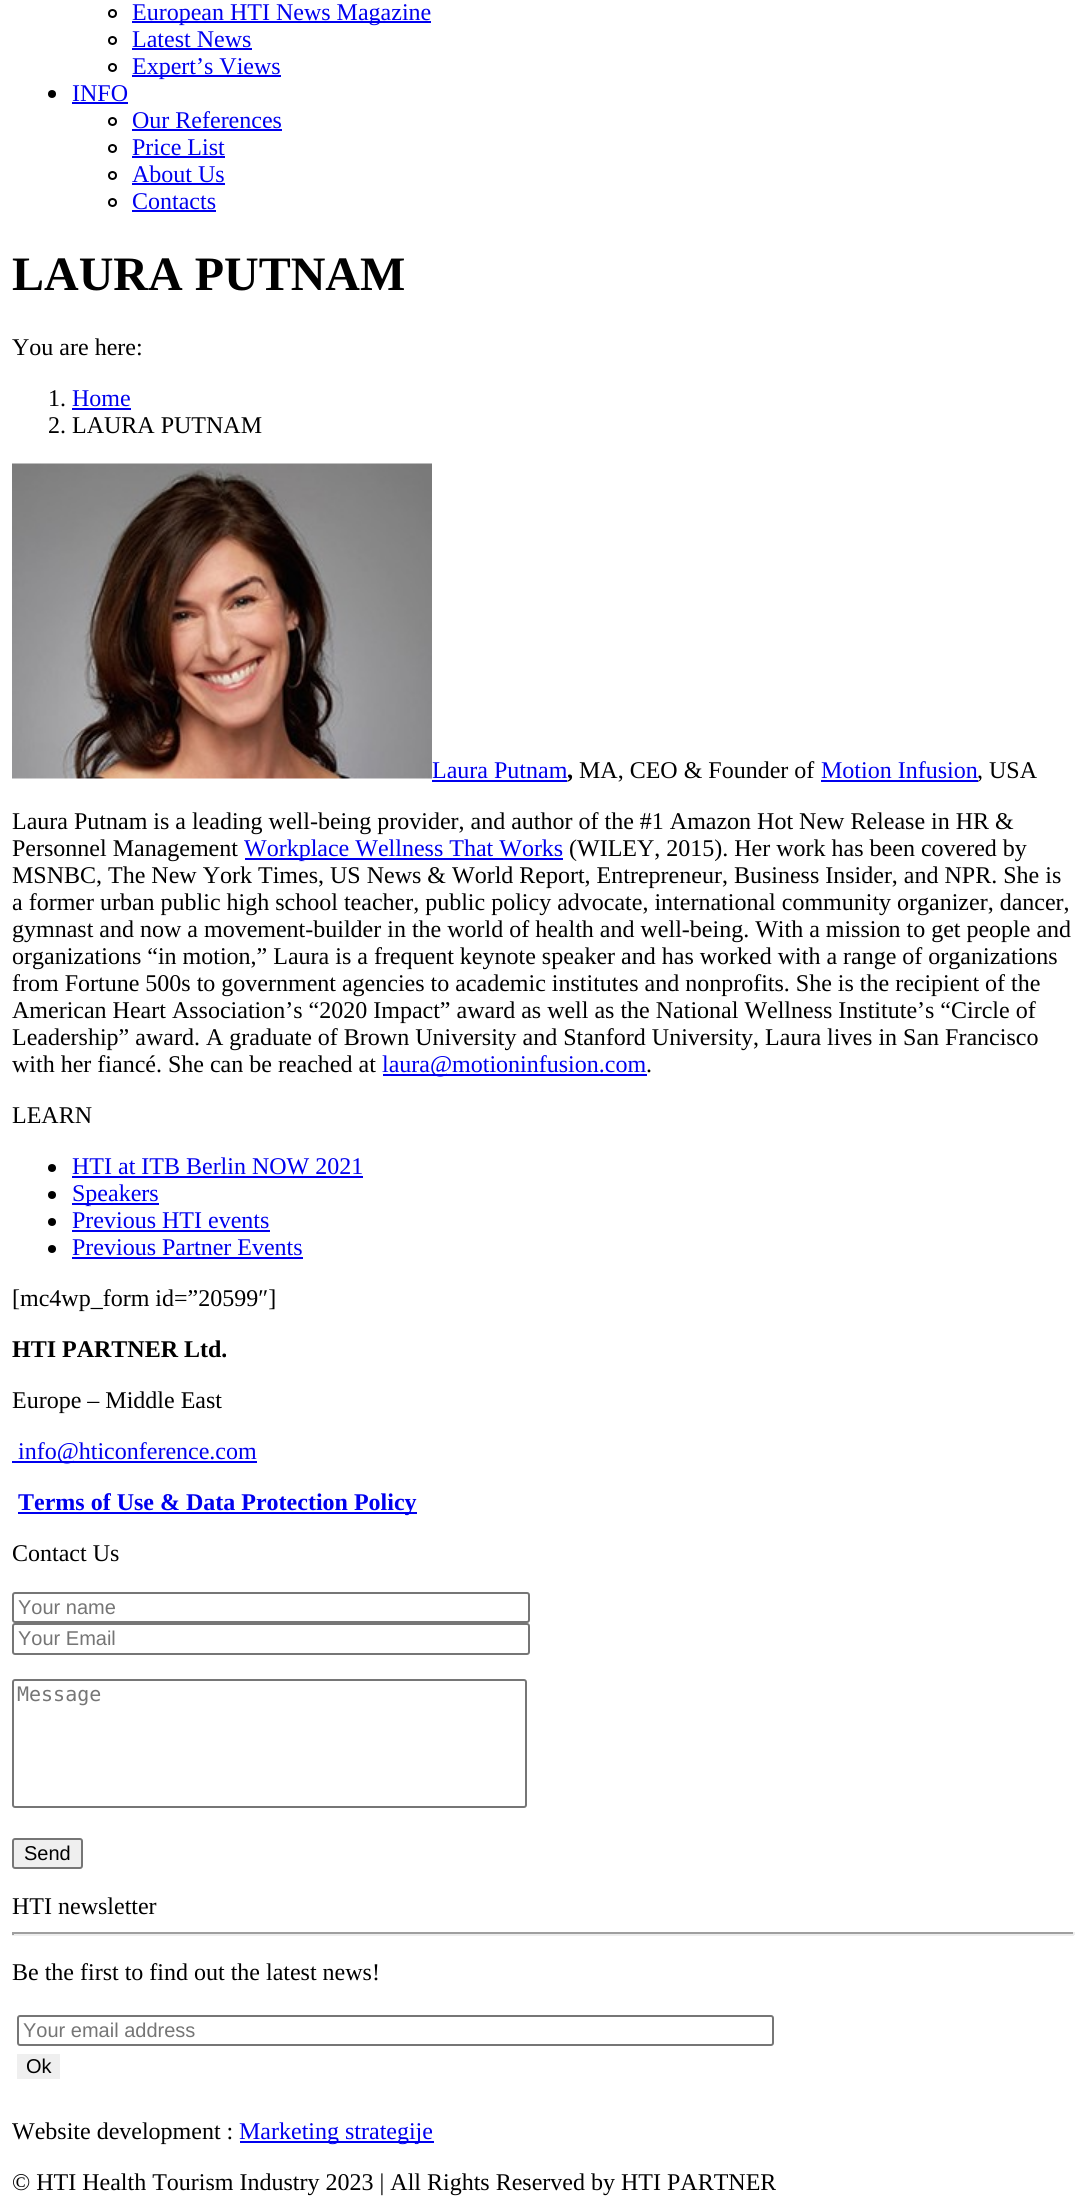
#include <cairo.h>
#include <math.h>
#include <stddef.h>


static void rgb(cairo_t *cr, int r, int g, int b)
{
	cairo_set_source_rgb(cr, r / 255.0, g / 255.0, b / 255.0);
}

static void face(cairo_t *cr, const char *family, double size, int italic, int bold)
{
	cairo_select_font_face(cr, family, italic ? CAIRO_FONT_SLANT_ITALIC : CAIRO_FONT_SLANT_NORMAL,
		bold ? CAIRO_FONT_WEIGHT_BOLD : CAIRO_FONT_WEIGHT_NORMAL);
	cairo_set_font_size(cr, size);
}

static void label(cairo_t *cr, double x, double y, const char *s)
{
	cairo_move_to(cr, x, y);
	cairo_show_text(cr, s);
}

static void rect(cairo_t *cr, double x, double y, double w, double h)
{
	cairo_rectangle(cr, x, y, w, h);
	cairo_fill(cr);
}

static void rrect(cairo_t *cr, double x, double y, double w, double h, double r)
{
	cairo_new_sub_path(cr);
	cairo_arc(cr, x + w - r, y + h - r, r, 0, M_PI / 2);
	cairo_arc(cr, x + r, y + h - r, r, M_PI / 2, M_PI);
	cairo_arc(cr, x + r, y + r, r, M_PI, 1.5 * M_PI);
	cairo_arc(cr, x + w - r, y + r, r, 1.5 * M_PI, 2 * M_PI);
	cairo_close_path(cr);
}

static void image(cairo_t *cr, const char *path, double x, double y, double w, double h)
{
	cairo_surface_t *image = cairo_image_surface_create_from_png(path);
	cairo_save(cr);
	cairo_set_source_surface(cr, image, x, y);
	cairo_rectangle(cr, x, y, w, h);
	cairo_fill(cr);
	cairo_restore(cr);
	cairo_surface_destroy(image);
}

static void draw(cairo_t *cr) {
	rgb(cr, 255, 255, 255);
	cairo_paint(cr);
	cairo_arc(cr, 112.5, 13.5, 3.5, 0, 2 * M_PI);
	rgb(cr, 0, 0, 0);
	cairo_stroke(cr);
	rgb(cr, 0, 0, 238);
	rect(cr, 132, 21, 299, 2);
	face(cr, "Liberation Serif", 24, 0, 0);
	label(cr, 132, 20, "European HTI News Magazine");
	cairo_new_path(cr);
	cairo_arc(cr, 112.5, 40.5, 3.5, 0, 2 * M_PI);
	rgb(cr, 0, 0, 0);
	cairo_stroke(cr);
	rgb(cr, 0, 0, 238);
	label(cr, 132, 47, "Latest News");
	rect(cr, 132, 48, 120, 2);
	cairo_new_path(cr);
	cairo_arc(cr, 112.5, 67.5, 3.5, 0, 2 * M_PI);
	rgb(cr, 0, 0, 0);
	cairo_stroke(cr);
	rgb(cr, 0, 0, 238);
	rect(cr, 132, 75, 149, 2);
	label(cr, 132, 74, "Expert’s Views");
	rgb(cr, 0, 0, 0);
	cairo_new_path(cr);
	cairo_arc(cr, 52, 94, 4, 0, 2 * M_PI);
	cairo_fill(cr);
	rgb(cr, 0, 0, 238);
	label(cr, 72, 101, "INFO");
	rect(cr, 72, 102, 56, 2);
	cairo_new_path(cr);
	cairo_arc(cr, 112.5, 121.5, 3.5, 0, 2 * M_PI);
	rgb(cr, 0, 0, 0);
	cairo_stroke(cr);
	rgb(cr, 0, 0, 238);
	label(cr, 132, 128, "Our References");
	rect(cr, 132, 129, 150, 2);
	cairo_new_path(cr);
	cairo_arc(cr, 112.5, 148.5, 3.5, 0, 2 * M_PI);
	rgb(cr, 0, 0, 0);
	cairo_stroke(cr);
	rgb(cr, 0, 0, 238);
	label(cr, 132, 155, "Price List");
	rect(cr, 132, 156, 93, 2);
	cairo_new_path(cr);
	cairo_arc(cr, 112.5, 175.5, 3.5, 0, 2 * M_PI);
	rgb(cr, 0, 0, 0);
	cairo_stroke(cr);
	rgb(cr, 0, 0, 238);
	label(cr, 132, 182, "About Us");
	rect(cr, 132, 183, 93, 2);
	cairo_new_path(cr);
	cairo_arc(cr, 112.5, 202.5, 3.5, 0, 2 * M_PI);
	rgb(cr, 0, 0, 0);
	cairo_stroke(cr);
	rgb(cr, 0, 0, 238);
	label(cr, 132, 209, "Contacts");
	rect(cr, 132, 210, 84, 2);
	face(cr, "Liberation Serif", 48, 0, 1);
	rgb(cr, 0, 0, 0);
	label(cr, 12, 290, "LAURA PUTNAM");
	face(cr, "Liberation Serif", 24, 0, 0);
	label(cr, 12, 355, "You are here:");
	label(cr, 48, 406, "1.");
	rgb(cr, 0, 0, 238);
	label(cr, 72, 406, "Home");
	rect(cr, 72, 408, 59, 2);
	rgb(cr, 0, 0, 0);
	label(cr, 48, 433, "2. LAURA PUTNAM");
	image(cr, "image0.png", 12, 463, 420, 316);
	rgb(cr, 0, 0, 238);
	label(cr, 432, 778, "Laura Putnam");
	rect(cr, 432, 780, 135, 2);
	face(cr, "Liberation Serif", 24, 0, 1);
	rgb(cr, 0, 0, 0);
	label(cr, 567, 778, ",");
	face(cr, "Liberation Serif", 24, 0, 0);
	label(cr, 579, 778, "MA, CEO & Founder of");
	rgb(cr, 0, 0, 238);
	label(cr, 821, 778, "Motion Infusion");
	rect(cr, 821, 780, 157, 2);
	rgb(cr, 0, 0, 0);
	label(cr, 977, 778, ", USA");
	label(cr, 12, 829, "Laura Putnam is a leading well-being provider, and author of the #1 Amazon Hot New Release in HR &");
	label(cr, 12, 856, "Personnel Management");
	rgb(cr, 0, 0, 238);
	rect(cr, 245, 858, 318, 2);
	label(cr, 244, 856, "Workplace Wellness That Works");
	rgb(cr, 0, 0, 0);
	label(cr, 569, 856, "(WILEY, 2015). Her work has been covered by");
	label(cr, 12, 883, "MSNBC, The New York Times, US News & World Report, Entrepreneur, Business Insider, and NPR. She is");
	label(cr, 12, 910, "a former urban public high school teacher, public policy advocate, international community organizer, dancer,");
	label(cr, 12, 937, "gymnast and now a movement-builder in the world of health and well-being. With a mission to get people and");
	label(cr, 12, 964, "organizations “in motion,” Laura is a frequent keynote speaker and has worked with a range of organizations");
	label(cr, 12, 991, "from Fortune 500s to government agencies to academic institutes and nonprofits. She is the recipient of the");
	label(cr, 12, 1018, "American Heart Association’s “2020 Impact” award as well as the National Wellness Institute’s “Circle of");
	label(cr, 12, 1045, "Leadership” award. A graduate of Brown University and Stanford University, Laura lives in San Francisco");
	label(cr, 12, 1072, "with her fiancé. She can be reached at");
	rgb(cr, 0, 0, 238);
	rect(cr, 383, 1074, 264, 2);
	label(cr, 382, 1072, "laura@motioninfusion.com");
	rgb(cr, 0, 0, 0);
	label(cr, 646, 1072, ".");
	label(cr, 12, 1123, "LEARN");
	cairo_new_path(cr);
	cairo_arc(cr, 52, 1168, 4, 0, 2 * M_PI);
	cairo_fill(cr);
	rgb(cr, 0, 0, 238);
	label(cr, 72, 1174, "HTI at ITB Berlin NOW 2021");
	rect(cr, 72, 1176, 291, 2);
	rgb(cr, 0, 0, 0);
	cairo_new_path(cr);
	cairo_arc(cr, 52, 1195, 4, 0, 2 * M_PI);
	cairo_fill(cr);
	rgb(cr, 0, 0, 238);
	rect(cr, 72, 1203, 87, 2);
	label(cr, 72, 1201, "Speakers");
	rgb(cr, 0, 0, 0);
	cairo_new_path(cr);
	cairo_arc(cr, 52, 1222, 4, 0, 2 * M_PI);
	cairo_fill(cr);
	rgb(cr, 0, 0, 238);
	label(cr, 72, 1228, "Previous HTI events");
	rect(cr, 72, 1230, 198, 2);
	rgb(cr, 0, 0, 0);
	cairo_new_path(cr);
	cairo_arc(cr, 52, 1249, 4, 0, 2 * M_PI);
	cairo_fill(cr);
	rgb(cr, 0, 0, 238);
	label(cr, 72, 1255, "Previous Partner Events");
	rect(cr, 72, 1257, 231, 2);
	rgb(cr, 0, 0, 0);
	label(cr, 12, 1306, "[mc4wp_form id=”20599″]");
	face(cr, "Liberation Serif", 24, 0, 1);
	label(cr, 12, 1357, "HTI PARTNER Ltd.");
	face(cr, "Liberation Serif", 24, 0, 0);
	label(cr, 12, 1408, "Europe – Middle East");
	rgb(cr, 0, 0, 238);
	rect(cr, 12, 1461, 245, 2);
	label(cr, 18, 1459, "info@hticonference.com");
	rect(cr, 18, 1512, 399, 2);
	face(cr, "Liberation Serif", 24, 0, 1);
	label(cr, 18, 1510, "Terms of Use & Data Protection Policy");
	face(cr, "Liberation Serif", 24, 0, 0);
	rgb(cr, 0, 0, 0);
	label(cr, 12, 1561, "Contact Us");
	rrect(cr, 13, 1593, 516, 29, 2);
	rgb(cr, 118, 118, 118);
	cairo_stroke(cr);
	face(cr, "Liberation Sans", 20, 0, 0);
	rgb(cr, 117, 117, 117);
	label(cr, 18, 1614, "Your name");
	rrect(cr, 13, 1624, 516, 30, 2);
	rgb(cr, 118, 118, 118);
	cairo_stroke(cr);
	rgb(cr, 117, 117, 117);
	label(cr, 18, 1645, "Your Email");
	rrect(cr, 13, 1680, 513, 127, 2);
	rgb(cr, 118, 118, 118);
	cairo_stroke(cr);
	face(cr, "DejaVu Sans Mono", 20, 0, 0);
	rgb(cr, 117, 117, 117);
	label(cr, 17, 1701, "Message");
	rgb(cr, 239, 239, 239);
	rrect(cr, 13, 1839, 69, 29, 2);
	cairo_fill_preserve(cr);
	rgb(cr, 118, 118, 118);
	cairo_stroke(cr);
	face(cr, "Liberation Sans", 20, 0, 0);
	rgb(cr, 0, 0, 0);
	label(cr, 24, 1860, "Send");
	face(cr, "Liberation Serif", 24, 0, 0);
	label(cr, 12, 1914, "HTI newsletter");
	rgb(cr, 159, 159, 159);
	rect(cr, 12, 1932, 1062, 2);
	rgb(cr, 238, 238, 238);
	rect(cr, 1073, 1932, 2, 3);
	rect(cr, 12, 1934, 1062, 2);
	rgb(cr, 159, 159, 159);
	rect(cr, 12, 1932, 2, 3);
	rgb(cr, 0, 0, 0);
	label(cr, 12, 1980, "Be the first to find out the latest news!");
	rrect(cr, 18, 2016, 755, 29, 2);
	rgb(cr, 118, 118, 118);
	cairo_stroke(cr);
	face(cr, "Liberation Sans", 20, 0, 0);
	rgb(cr, 117, 117, 117);
	label(cr, 23, 2037, "Your email address");
	rgb(cr, 239, 239, 239);
	rect(cr, 17, 2054, 43, 25);
	rgb(cr, 0, 0, 0);
	label(cr, 26, 2073, "Ok");
	face(cr, "Liberation Serif", 24, 0, 0);
	label(cr, 12, 2139, "Website development :");
	rgb(cr, 0, 0, 238);
	rect(cr, 240, 2141, 194, 2);
	label(cr, 239, 2139, "Marketing strategije");
	rgb(cr, 0, 0, 0);
	label(cr, 12, 2190, "© HTI Health Tourism Industry 2023 | All Rights Reserved by HTI PARTNER");
}

int main(void) {
	cairo_surface_t *surface = cairo_image_surface_create(CAIRO_FORMAT_RGB24, 1086, 2209);
	cairo_t *cr = cairo_create(surface);
	cairo_font_options_t *options = cairo_font_options_create();
	cairo_font_options_set_hint_metrics(options, CAIRO_HINT_METRICS_OFF);
	cairo_font_options_set_hint_style(options, CAIRO_HINT_STYLE_NONE);
	cairo_set_font_options(cr, options);
	cairo_set_miter_limit(cr, 4);
	draw(cr);
	cairo_surface_write_to_png(surface, "render.png");
	cairo_font_options_destroy(options);
	cairo_destroy(cr);
	cairo_surface_destroy(surface);
	return 0;
}
